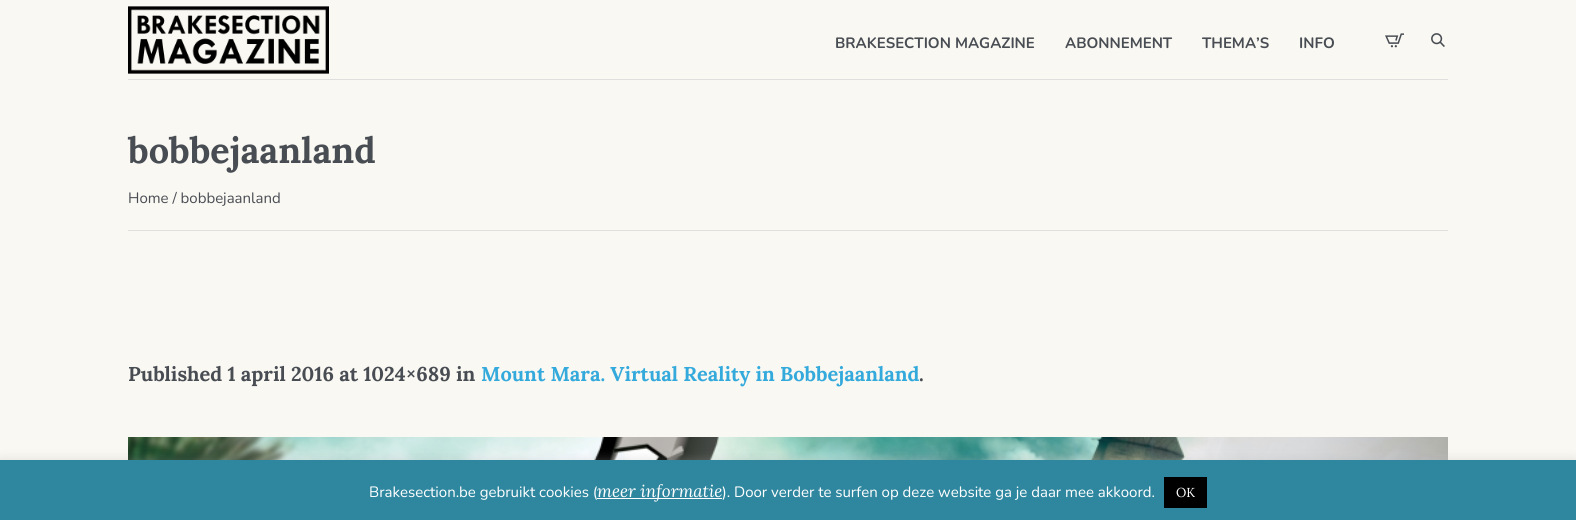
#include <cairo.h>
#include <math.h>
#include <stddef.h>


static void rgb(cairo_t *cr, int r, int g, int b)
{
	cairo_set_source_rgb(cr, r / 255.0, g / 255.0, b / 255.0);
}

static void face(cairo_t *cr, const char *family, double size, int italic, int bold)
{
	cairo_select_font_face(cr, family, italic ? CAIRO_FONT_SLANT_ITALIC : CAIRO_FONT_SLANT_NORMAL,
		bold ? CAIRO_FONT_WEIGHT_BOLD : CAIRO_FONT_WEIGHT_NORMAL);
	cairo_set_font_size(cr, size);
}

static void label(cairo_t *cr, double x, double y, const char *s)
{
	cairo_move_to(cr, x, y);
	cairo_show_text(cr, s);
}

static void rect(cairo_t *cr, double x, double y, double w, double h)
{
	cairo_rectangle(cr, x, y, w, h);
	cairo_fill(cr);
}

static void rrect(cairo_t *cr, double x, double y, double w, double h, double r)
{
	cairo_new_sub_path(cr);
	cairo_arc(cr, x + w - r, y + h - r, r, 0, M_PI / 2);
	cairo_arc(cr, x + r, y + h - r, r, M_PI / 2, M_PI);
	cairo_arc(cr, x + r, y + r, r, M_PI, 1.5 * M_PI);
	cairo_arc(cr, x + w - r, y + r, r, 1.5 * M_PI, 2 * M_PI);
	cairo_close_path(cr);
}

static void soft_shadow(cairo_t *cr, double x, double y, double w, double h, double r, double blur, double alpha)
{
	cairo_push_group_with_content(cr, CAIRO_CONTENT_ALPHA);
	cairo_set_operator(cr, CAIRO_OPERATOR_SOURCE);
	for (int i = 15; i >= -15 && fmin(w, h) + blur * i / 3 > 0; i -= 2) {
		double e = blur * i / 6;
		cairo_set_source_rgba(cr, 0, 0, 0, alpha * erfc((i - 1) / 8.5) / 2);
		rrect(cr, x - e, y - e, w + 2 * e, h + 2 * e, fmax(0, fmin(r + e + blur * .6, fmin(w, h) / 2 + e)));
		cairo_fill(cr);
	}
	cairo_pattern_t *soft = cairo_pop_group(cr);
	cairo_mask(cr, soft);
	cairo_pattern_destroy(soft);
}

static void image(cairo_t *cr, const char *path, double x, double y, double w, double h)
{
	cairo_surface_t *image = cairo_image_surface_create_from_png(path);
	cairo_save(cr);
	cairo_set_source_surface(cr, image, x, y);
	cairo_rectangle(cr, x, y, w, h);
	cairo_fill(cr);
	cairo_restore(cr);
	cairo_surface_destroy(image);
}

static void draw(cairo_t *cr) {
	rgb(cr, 250, 248, 242);
	cairo_paint(cr);
	image(cr, "image0.png", 128, 6, 201, 68);
	face(cr, "Nunito", 15, 0, 1);
	rgb(cr, 72, 76, 83);
	label(cr, 835, 48, "BRAKESECTION MAGAZINE");
	label(cr, 1065, 48, "ABONNEMENT");
	label(cr, 1202, 48, "THEMA’S");
	label(cr, 1299, 48, "INFO");
	image(cr, "image1.png", 1385, 33, 19, 15);
	image(cr, "image2.png", 1431, 33, 14, 14);
	rgb(cr, 223, 223, 223);
	rect(cr, 128, 79, 1320, 1);
	rect(cr, 128, 230, 1320, 1);
	face(cr, "Lora", 36, 0, 1);
	rgb(cr, 72, 76, 83);
	label(cr, 128, 163, "bobbejaanland");
	face(cr, "Nunito", 15, 0, 0);
	label(cr, 128, 203, "Home / bobbejaanland");
	face(cr, "Lora", 20, 0, 1);
	label(cr, 128, 381, "Published 1 april 2016 at 1024×689 in");
	rgb(cr, 52, 170, 220);
	label(cr, 481, 381, "Mount Mara. Virtual Reality in Bobbejaanland");
	rgb(cr, 72, 76, 83);
	label(cr, 919, 381, ".");
	image(cr, "image3.png", 128, 437, 1320, 23);
	rgb(cr, 172, 171, 171);
	soft_shadow(cr, 0, 459, 1576, 60, 0, 5, 0.3);
	rgb(cr, 47, 135, 159);
	rect(cr, 0, 460, 1576, 60);
	face(cr, "Nunito", 15, 0, 0);
	rgb(cr, 255, 255, 255);
	label(cr, 369, 497, "Brakesection.be gebruikt cookies (");
	rect(cr, 597, 498, 125, 1);
	face(cr, "Lora", 17, 1, 0);
	label(cr, 597, 497, "meer informatie");
	face(cr, "Nunito", 15, 0, 0);
	label(cr, 722, 497, "). Door verder te surfen op deze website ga je daar mee akkoord.");
	rgb(cr, 0, 0, 0);
	rect(cr, 1164, 477, 43, 31);
	face(cr, "Lora", 13, 0, 0);
	rgb(cr, 255, 255, 255);
	label(cr, 1176, 497, "OK");
}

int main(void) {
	cairo_surface_t *surface = cairo_image_surface_create(CAIRO_FORMAT_RGB24, 1576, 520);
	cairo_t *cr = cairo_create(surface);
	cairo_font_options_t *options = cairo_font_options_create();
	cairo_font_options_set_hint_metrics(options, CAIRO_HINT_METRICS_OFF);
	cairo_font_options_set_hint_style(options, CAIRO_HINT_STYLE_NONE);
	cairo_set_font_options(cr, options);
	cairo_set_miter_limit(cr, 4);
	draw(cr);
	cairo_surface_write_to_png(surface, "render.png");
	cairo_font_options_destroy(options);
	cairo_destroy(cr);
	cairo_surface_destroy(surface);
	return 0;
}
